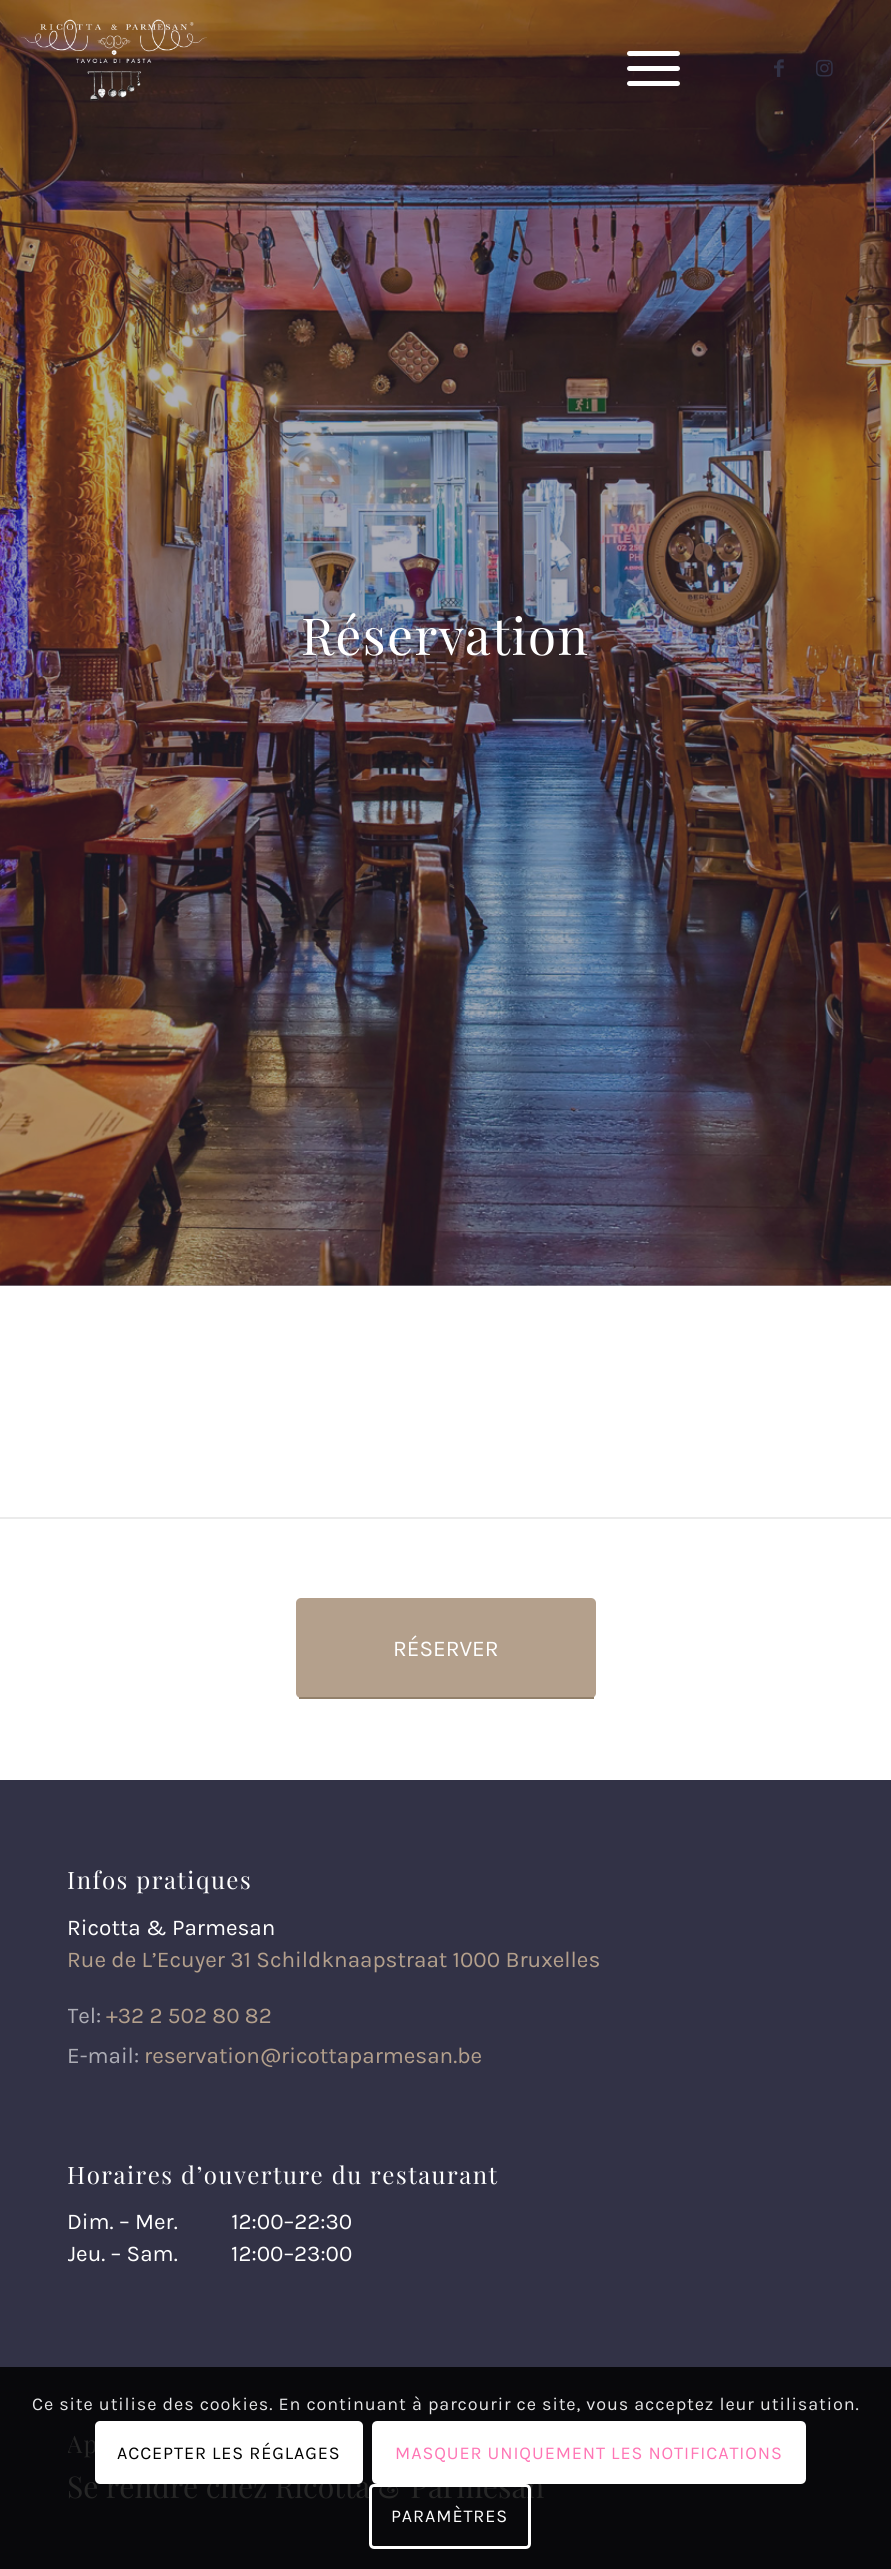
#include <cairo.h>
#include <math.h>
#include <stddef.h>


static void rgb(cairo_t *cr, int r, int g, int b)
{
	cairo_set_source_rgb(cr, r / 255.0, g / 255.0, b / 255.0);
}

static void face(cairo_t *cr, const char *family, double size, int italic, int bold)
{
	cairo_select_font_face(cr, family, italic ? CAIRO_FONT_SLANT_ITALIC : CAIRO_FONT_SLANT_NORMAL,
		bold ? CAIRO_FONT_WEIGHT_BOLD : CAIRO_FONT_WEIGHT_NORMAL);
	cairo_set_font_size(cr, size);
}

static void label(cairo_t *cr, double x, double y, const char *s)
{
	cairo_move_to(cr, x, y);
	cairo_show_text(cr, s);
}

static void tracked(cairo_t *cr, double x, double y, const char *s, double letter, double word)
{
	cairo_move_to(cr, x, y);
	while (*s) {
		char ch[5] = {0};
		int n = 0;
		do ch[n++] = *s++; while ((*s & 0xC0) == 0x80);
		cairo_show_text(cr, ch);
		cairo_rel_move_to(cr, letter + word * (*ch == ' '), 0);
	}
}

static void rect(cairo_t *cr, double x, double y, double w, double h)
{
	cairo_rectangle(cr, x, y, w, h);
	cairo_fill(cr);
}

static void rrect(cairo_t *cr, double x, double y, double w, double h, double r)
{
	cairo_new_sub_path(cr);
	cairo_arc(cr, x + w - r, y + h - r, r, 0, M_PI / 2);
	cairo_arc(cr, x + r, y + h - r, r, M_PI / 2, M_PI);
	cairo_arc(cr, x + r, y + r, r, M_PI, 1.5 * M_PI);
	cairo_arc(cr, x + w - r, y + r, r, 1.5 * M_PI, 2 * M_PI);
	cairo_close_path(cr);
}

static void image(cairo_t *cr, const char *path, double x, double y, double w, double h)
{
	cairo_surface_t *image = cairo_image_surface_create_from_png(path);
	cairo_save(cr);
	cairo_set_source_surface(cr, image, x, y);
	cairo_rectangle(cr, x, y, w, h);
	cairo_fill(cr);
	cairo_restore(cr);
	cairo_surface_destroy(image);
}

static void draw(cairo_t *cr) {
	rgb(cr, 255, 255, 255);
	cairo_paint(cr);
	rgb(cr, 173, 173, 181);
	rect(cr, 0, 1285, 891, 1);
	image(cr, "image3.png", 0, 0, 891, 1286);
	image(cr, "image0.png", 21, 19, 186, 82);
	rgb(cr, 255, 255, 255);
	rrect(cr, 627, 66, 53, 5, 2.5);
	cairo_fill(cr);
	rrect(cr, 627, 51, 53, 5, 2.5);
	cairo_fill(cr);
	rrect(cr, 627, 81, 53, 5, 2.5);
	cairo_fill(cr);
	image(cr, "image1.png", 774, 59, 10, 18);
	image(cr, "image2.png", 816, 59, 17, 18);
	face(cr, "Playfair Display", 51, 0, 0);
	tracked(cr, 301, 655, "Réservation", 1.5, 0);
	rgb(cr, 235, 235, 235);
	rect(cr, 0, 1517, 891, 2);
	rgb(cr, 180, 160, 140);
	rrect(cr, 296, 1598, 300, 100, 5);
	cairo_fill(cr);
	rgb(cr, 146, 128, 106);
	rect(cr, 299, 1697, 295, 2);
	face(cr, "Karla", 22.5, 0, 0);
	rgb(cr, 255, 255, 255);
	label(cr, 393, 1656, "RÉSERVER");
	rgb(cr, 50, 50, 70);
	rect(cr, 0, 1780, 891, 587);
	rgb(cr, 8, 8, 11);
	rect(cr, 0, 2367, 891, 202);
	face(cr, "Playfair Display", 24, 0, 0);
	rgb(cr, 255, 255, 255);
	tracked(cr, 67, 1889, "Infos pratiques", 1.5, 0);
	face(cr, "Karla", 22.5, 0, 0);
	label(cr, 67, 1935, "Ricotta & Parmesan");
	rgb(cr, 180, 160, 140);
	label(cr, 67, 1967, "Rue de L’Ecuyer 31 Schildknaapstraat 1000 Bruxelles");
	cairo_save(cr);
	cairo_rectangle(cr, 68, 1847, 756, 249);
	cairo_clip(cr);
	rgb(cr, 173, 173, 181);
	label(cr, 67, 2023, "Tel:");
	cairo_restore(cr);
	label(cr, 106, 2023, "+32 2 502 80 82");
	rgb(cr, 173, 173, 181);
	label(cr, 67, 2063, "E-mail:");
	rgb(cr, 180, 160, 140);
	label(cr, 144, 2063, "reservation@ricottaparmesan.be");
	face(cr, "Playfair Display", 24, 0, 0);
	rgb(cr, 255, 255, 255);
	tracked(cr, 67, 2184, "Horaires d’ouverture du restaurant", 1.5, 0);
	face(cr, "Karla", 22.5, 0, 0);
	label(cr, 67, 2229, "Dim. – Mer.          12:00–22:30");
	cairo_save(cr);
	cairo_rectangle(cr, 68, 2141, 756, 150);
	cairo_clip(cr);
	label(cr, 67, 2261, "Jeu. – Sam.          12:00–23:00");
	cairo_restore(cr);
	cairo_save(cr);
	cairo_rectangle(cr, 68, 2411, 756, 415);
	cairo_clip(cr);
	face(cr, "Playfair Display", 24, 0, 0);
	rgb(cr, 38, 38, 38);
	tracked(cr, 67, 2453, "Ap", 1.5, 0);
	cairo_restore(cr);
	face(cr, "Playfair Display", 30, 0, 0);
	rgb(cr, 38, 38, 38);
	label(cr, 67, 2498, "Se rendre chez Ricotta & Parmesan");
	face(cr, "Karla", 18, 0, 0);
	rgb(cr, 230, 230, 231);
	tracked(cr, 32, 2410, "Ce site utilise des cookies. En continuant à parcourir ce site, vous acceptez leur utilisation.", 0.9, 0);
	rgb(cr, 255, 255, 255);
	rrect(cr, 95, 2421, 268, 63, 5);
	cairo_fill(cr);
	rgb(cr, 0, 0, 0);
	tracked(cr, 117, 2459, "ACCEPTER LES RÉGLAGES", 0.9, 0);
	rgb(cr, 255, 255, 255);
	rrect(cr, 373.5, 2422.5, 431, 60, 3.5);
	cairo_fill_preserve(cr);
	cairo_set_line_width(cr, 3);
	cairo_stroke(cr);
	rgb(cr, 255, 117, 181);
	tracked(cr, 395, 2459, "MASQUER UNIQUEMENT LES NOTIFICATIONS", 0.9, 0);
	rrect(cr, 370.5, 2485.5, 159, 62, 3.5);
	rgb(cr, 255, 255, 255);
	cairo_stroke(cr);
	tracked(cr, 391, 2522, "PARAMÈTRES", 0.9, 0);
}

int main(void) {
	cairo_surface_t *surface = cairo_image_surface_create(CAIRO_FORMAT_RGB24, 891, 2569);
	cairo_t *cr = cairo_create(surface);
	cairo_font_options_t *options = cairo_font_options_create();
	cairo_font_options_set_hint_metrics(options, CAIRO_HINT_METRICS_OFF);
	cairo_font_options_set_hint_style(options, CAIRO_HINT_STYLE_NONE);
	cairo_set_font_options(cr, options);
	cairo_set_miter_limit(cr, 4);
	draw(cr);
	cairo_surface_write_to_png(surface, "render.png");
	cairo_font_options_destroy(options);
	cairo_destroy(cr);
	cairo_surface_destroy(surface);
	return 0;
}
